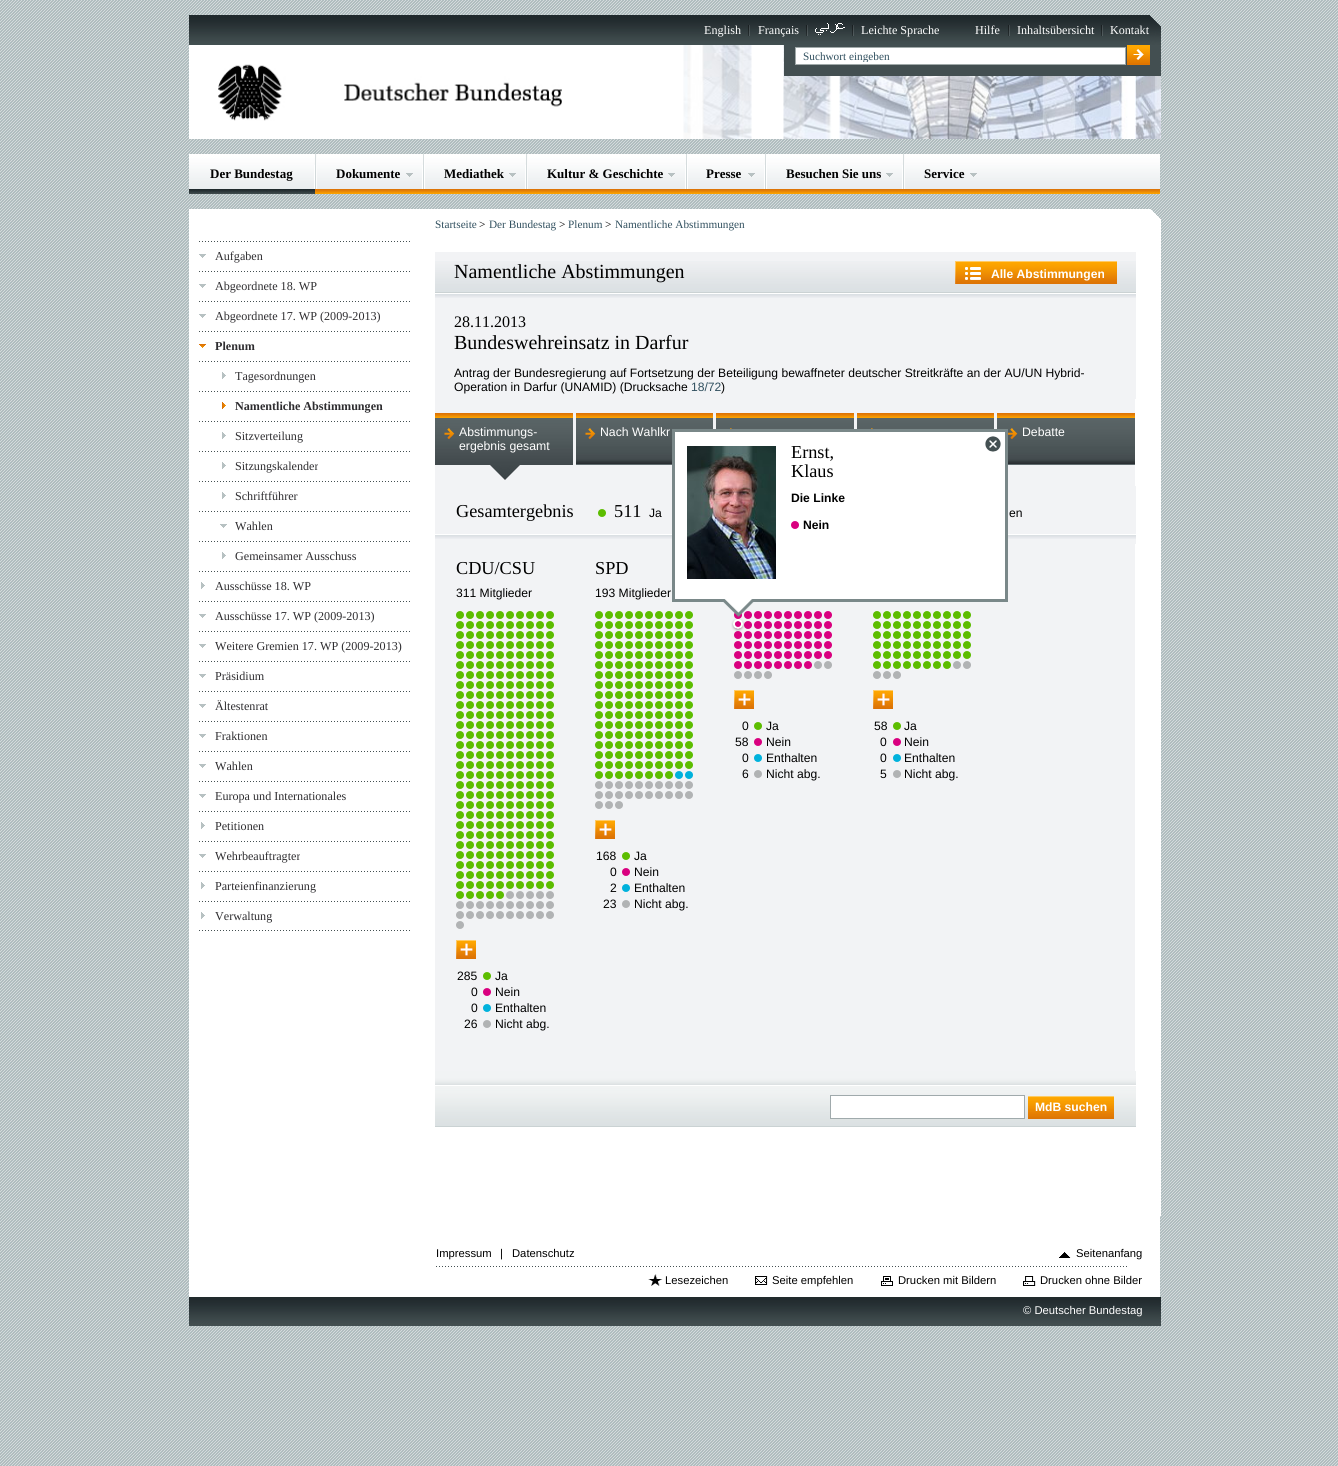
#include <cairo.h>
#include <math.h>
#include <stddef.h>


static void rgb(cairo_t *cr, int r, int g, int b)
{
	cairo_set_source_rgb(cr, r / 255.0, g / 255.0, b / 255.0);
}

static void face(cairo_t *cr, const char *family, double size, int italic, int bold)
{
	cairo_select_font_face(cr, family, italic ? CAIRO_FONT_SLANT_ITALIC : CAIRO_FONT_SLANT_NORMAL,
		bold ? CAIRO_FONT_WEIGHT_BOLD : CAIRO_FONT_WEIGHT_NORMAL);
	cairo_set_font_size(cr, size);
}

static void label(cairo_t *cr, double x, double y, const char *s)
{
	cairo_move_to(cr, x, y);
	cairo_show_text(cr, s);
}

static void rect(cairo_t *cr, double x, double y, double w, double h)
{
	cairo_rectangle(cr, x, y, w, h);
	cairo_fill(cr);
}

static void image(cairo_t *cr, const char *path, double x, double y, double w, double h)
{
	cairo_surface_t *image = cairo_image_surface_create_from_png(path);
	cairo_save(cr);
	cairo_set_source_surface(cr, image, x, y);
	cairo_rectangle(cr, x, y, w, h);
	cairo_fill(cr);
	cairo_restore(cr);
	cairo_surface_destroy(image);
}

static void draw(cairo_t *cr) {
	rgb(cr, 255, 255, 255);
	cairo_paint(cr);
	image(cr, "image0.png", 0, 0, 1338, 1466);
	image(cr, "image1.png", 189, 15, 961, 30);
	face(cr, "Liberation Serif", 12.12, 0, 0);
	rgb(cr, 255, 255, 255);
	label(cr, 704, 34, "English");
	image(cr, "image2.png", 748, 25, 2, 11);
	label(cr, 758, 34, "Français");
	image(cr, "image2.png", 806, 25, 2, 11);
	image(cr, "image3.png", 815, 23, 30, 12);
	image(cr, "image2.png", 852, 25, 2, 11);
	label(cr, 861, 34, "Leichte Sprache");
	label(cr, 975, 34, "Hilfe");
	image(cr, "image2.png", 1008, 25, 2, 11);
	label(cr, 1017, 34, "Inhaltsübersicht");
	image(cr, "image2.png", 1101, 25, 2, 11);
	label(cr, 1110, 34, "Kontakt");
	image(cr, "image4.png", 1150, 16, 11, 29);
	rect(cr, 189, 45, 494, 94);
	image(cr, "image5.png", 683, 45, 478, 94);
	rgb(cr, 67, 79, 81);
	rect(cr, 784, 45, 377, 31);
	rgb(cr, 255, 255, 255);
	cairo_rectangle(cr, 795.5, 47.5, 330, 17);
	cairo_fill_preserve(cr);
	rgb(cr, 160, 169, 169);
	cairo_set_line_width(cr, 1);
	cairo_stroke(cr);
	cairo_save(cr);
	cairo_rectangle(cr, 803, 50, 322, 12);
	cairo_clip(cr);
	face(cr, "Liberation Serif", 11.25, 0, 0);
	rgb(cr, 49, 80, 95);
	label(cr, 803, 60, "Suchwort eingeben");
	cairo_restore(cr);
	rgb(cr, 224, 117, 0);
	rect(cr, 1127, 63, 23, 2);
	image(cr, "image6.png", 1127, 45, 23, 18);
	image(cr, "image7.png", 218, 64, 344, 57);
	image(cr, "image8.png", 189, 154, 971, 40);
	image(cr, "image9.png", 189, 189, 126, 5);
	rgb(cr, 255, 255, 255);
	rect(cr, 314, 165, 1, 24);
	face(cr, "Liberation Serif", 13, 0, 1);
	rgb(cr, 0, 0, 0);
	label(cr, 210, 178, "Der Bundestag");
	image(cr, "image10.png", 315, 154, 2, 35);
	rgb(cr, 255, 255, 255);
	rect(cr, 422, 165, 1, 24);
	image(cr, "image11.png", 406, 173, 7, 4);
	rgb(cr, 0, 0, 0);
	label(cr, 336, 178, "Dokumente");
	image(cr, "image12.png", 423, 154, 2, 35);
	rgb(cr, 255, 255, 255);
	rect(cr, 525, 165, 1, 24);
	image(cr, "image11.png", 509, 173, 7, 4);
	rgb(cr, 0, 0, 0);
	label(cr, 444, 178, "Mediathek");
	image(cr, "image10.png", 526, 154, 2, 35);
	rgb(cr, 255, 255, 255);
	rect(cr, 685, 165, 1, 24);
	image(cr, "image11.png", 668, 173, 7, 4);
	rgb(cr, 0, 0, 0);
	label(cr, 547, 178, "Kultur & Geschichte");
	image(cr, "image12.png", 686, 154, 2, 35);
	rgb(cr, 255, 255, 255);
	rect(cr, 764, 165, 1, 24);
	image(cr, "image11.png", 748, 173, 7, 4);
	rgb(cr, 0, 0, 0);
	label(cr, 706, 178, "Presse");
	image(cr, "image12.png", 765, 154, 2, 35);
	rgb(cr, 255, 255, 255);
	rect(cr, 902, 165, 1, 24);
	image(cr, "image11.png", 886, 173, 7, 4);
	rgb(cr, 0, 0, 0);
	label(cr, 786, 178, "Besuchen Sie uns");
	image(cr, "image10.png", 903, 154, 2, 35);
	image(cr, "image11.png", 970, 173, 7, 4);
	label(cr, 924, 178, "Service");
	rgb(cr, 255, 255, 255);
	rect(cr, 189, 209, 752, 19);
	image(cr, "image13.png", 941, 209, 220, 19);
	rect(cr, 189, 228, 972, 988);
	image(cr, "image14.png", 199, 930, 211, 1);
	image(cr, "image14.png", 199, 241, 211, 1);
	image(cr, "image15.png", 199, 254, 7, 4);
	face(cr, "Liberation Serif", 12.12, 0, 0);
	rgb(cr, 46, 45, 48);
	label(cr, 215, 260, "Aufgaben");
	image(cr, "image14.png", 199, 271, 211, 1);
	image(cr, "image15.png", 199, 284, 7, 4);
	label(cr, 215, 290, "Abgeordnete 18. WP");
	image(cr, "image14.png", 199, 301, 211, 1);
	image(cr, "image15.png", 199, 314, 7, 4);
	label(cr, 215, 320, "Abgeordnete 17. WP (2009-2013)");
	image(cr, "image14.png", 199, 331, 211, 1);
	image(cr, "image16.png", 199, 344, 7, 4);
	face(cr, "Liberation Serif", 12.12, 0, 1);
	label(cr, 215, 350, "Plenum");
	image(cr, "image14.png", 199, 361, 211, 1);
	image(cr, "image17.png", 222, 372, 4, 7);
	face(cr, "Liberation Serif", 12.12, 0, 0);
	label(cr, 235, 380, "Tagesordnungen");
	image(cr, "image14.png", 199, 391, 211, 1);
	image(cr, "image18.png", 222, 402, 4, 7);
	face(cr, "Liberation Serif", 12.12, 0, 1);
	label(cr, 235, 410, "Namentliche Abstimmungen");
	image(cr, "image14.png", 199, 421, 211, 1);
	image(cr, "image17.png", 222, 432, 4, 7);
	face(cr, "Liberation Serif", 12.12, 0, 0);
	label(cr, 235, 440, "Sitzverteilung");
	image(cr, "image14.png", 199, 451, 211, 1);
	image(cr, "image17.png", 222, 462, 4, 7);
	label(cr, 235, 470, "Sitzungskalender");
	image(cr, "image14.png", 199, 481, 211, 1);
	image(cr, "image17.png", 222, 492, 4, 7);
	label(cr, 235, 500, "Schriftführer");
	image(cr, "image14.png", 199, 511, 211, 1);
	image(cr, "image15.png", 220, 524, 7, 4);
	label(cr, 235, 530, "Wahlen");
	image(cr, "image14.png", 199, 541, 211, 1);
	image(cr, "image17.png", 222, 552, 4, 7);
	label(cr, 235, 560, "Gemeinsamer Ausschuss");
	image(cr, "image14.png", 199, 571, 211, 1);
	image(cr, "image17.png", 201, 582, 4, 7);
	label(cr, 215, 590, "Ausschüsse 18. WP");
	image(cr, "image14.png", 199, 601, 211, 1);
	image(cr, "image15.png", 199, 614, 7, 4);
	label(cr, 215, 620, "Ausschüsse 17. WP (2009-2013)");
	image(cr, "image14.png", 199, 631, 211, 1);
	image(cr, "image15.png", 199, 644, 7, 4);
	label(cr, 215, 650, "Weitere Gremien 17. WP (2009-2013)");
	image(cr, "image14.png", 199, 661, 211, 1);
	image(cr, "image15.png", 199, 674, 7, 4);
	label(cr, 215, 680, "Präsidium");
	image(cr, "image14.png", 199, 691, 211, 1);
	image(cr, "image15.png", 199, 704, 7, 4);
	label(cr, 215, 710, "Ältestenrat");
	image(cr, "image14.png", 199, 721, 211, 1);
	image(cr, "image15.png", 199, 734, 7, 4);
	label(cr, 215, 740, "Fraktionen");
	image(cr, "image14.png", 199, 751, 211, 1);
	image(cr, "image15.png", 199, 764, 7, 4);
	label(cr, 215, 770, "Wahlen");
	image(cr, "image14.png", 199, 781, 211, 1);
	image(cr, "image15.png", 199, 794, 7, 4);
	label(cr, 215, 800, "Europa und Internationales");
	image(cr, "image14.png", 199, 811, 211, 1);
	image(cr, "image17.png", 201, 822, 4, 7);
	label(cr, 215, 830, "Petitionen");
	image(cr, "image14.png", 199, 841, 211, 1);
	image(cr, "image15.png", 199, 854, 7, 4);
	label(cr, 215, 860, "Wehrbeauftragter");
	image(cr, "image14.png", 199, 871, 211, 1);
	image(cr, "image17.png", 201, 882, 4, 7);
	label(cr, 215, 890, "Parteienfinanzierung");
	image(cr, "image14.png", 199, 901, 211, 1);
	image(cr, "image17.png", 201, 912, 4, 7);
	label(cr, 215, 920, "Verwaltung");
	face(cr, "Liberation Serif", 11.25, 0, 0);
	rgb(cr, 49, 80, 95);
	label(cr, 435, 228, "Startseite");
	rgb(cr, 0, 0, 0);
	label(cr, 479, 228, ">");
	rgb(cr, 49, 80, 95);
	label(cr, 489, 228, "Der Bundestag");
	rgb(cr, 0, 0, 0);
	label(cr, 559, 228, ">");
	rgb(cr, 49, 80, 95);
	label(cr, 568, 228, "Plenum");
	rgb(cr, 0, 0, 0);
	label(cr, 605, 228, ">");
	rgb(cr, 49, 80, 95);
	label(cr, 615, 228, "Namentliche Abstimmungen");
	rgb(cr, 242, 243, 245);
	rect(cr, 435, 252, 701, 147);
	image(cr, "image19.png", 435, 261, 701, 37);
	face(cr, "Liberation Serif", 20, 0, 0);
	rgb(cr, 0, 0, 0);
	label(cr, 454, 278, "Namentliche Abstimmungen");
	image(cr, "image20.png", 955, 261, 162, 23);
	face(cr, "Liberation Sans", 12.12, 0, 1);
	rgb(cr, 255, 255, 255);
	label(cr, 991, 278, "Alle Abstimmungen");
	face(cr, "Liberation Serif", 16, 0, 0);
	rgb(cr, 0, 0, 0);
	label(cr, 454, 327, "28.11.2013");
	face(cr, "Liberation Serif", 20, 0, 0);
	label(cr, 454, 349, "Bundeswehreinsatz in Darfur");
	face(cr, "Liberation Sans", 12.12, 0, 0);
	label(cr, 454, 377, "Antrag der Bundesregierung auf Fortsetzung der Beteiligung bewaffneter deutscher Streitkräfte an der AU/UN Hybrid-");
	label(cr, 454, 391, "Operation in Darfur (UNAMID) (Drucksache");
	rgb(cr, 49, 80, 95);
	label(cr, 691, 391, "18/72");
	rgb(cr, 0, 0, 0);
	label(cr, 721, 391, ")");
	rgb(cr, 242, 243, 245);
	rect(cr, 435, 399, 700, 87);
	image(cr, "image21.png", 716, 413, 138, 16);
	image(cr, "image22.png", 730, 428, 2, 1);
	image(cr, "image23.png", 857, 413, 137, 16);
	image(cr, "image22.png", 871, 428, 2, 1);
	image(cr, "image24.png", 435, 413, 138, 52);
	image(cr, "image25.png", 444, 428, 11, 11);
	face(cr, "Liberation Sans", 12.25, 0, 0);
	rgb(cr, 255, 255, 255);
	label(cr, 459, 436, "Abstimmungs-");
	label(cr, 459, 450, "ergebnis gesamt");
	image(cr, "image26.png", 490, 465, 30, 15);
	image(cr, "image27.png", 576, 413, 137, 52);
	image(cr, "image28.png", 585, 428, 11, 11);
	label(cr, 600, 436, "Nach Wahlkr");
	image(cr, "image29.png", 997, 413, 138, 52);
	image(cr, "image30.png", 1008, 428, 10, 11);
	label(cr, 1022, 436, "Debatte");
	rgb(cr, 242, 243, 245);
	rect(cr, 435, 544, 700, 527);
	face(cr, "Liberation Serif", 18.25, 0, 0);
	rgb(cr, 0, 0, 0);
	label(cr, 456, 574, "CDU/CSU");
	face(cr, "Liberation Sans", 12.12, 0, 0);
	label(cr, 456, 597, "311 Mitglieder");
	image(cr, "image31.png", 456, 611, 8, 8);
	image(cr, "image31.png", 466, 611, 8, 8);
	image(cr, "image31.png", 476, 611, 8, 8);
	image(cr, "image31.png", 486, 611, 8, 8);
	image(cr, "image31.png", 496, 611, 8, 8);
	image(cr, "image31.png", 506, 611, 8, 8);
	image(cr, "image31.png", 516, 611, 8, 8);
	image(cr, "image31.png", 526, 611, 8, 8);
	image(cr, "image31.png", 536, 611, 8, 8);
	image(cr, "image31.png", 546, 611, 8, 8);
	image(cr, "image31.png", 456, 621, 8, 8);
	image(cr, "image31.png", 466, 621, 8, 8);
	image(cr, "image31.png", 476, 621, 8, 8);
	image(cr, "image31.png", 486, 621, 8, 8);
	image(cr, "image31.png", 496, 621, 8, 8);
	image(cr, "image31.png", 506, 621, 8, 8);
	image(cr, "image31.png", 516, 621, 8, 8);
	image(cr, "image31.png", 526, 621, 8, 8);
	image(cr, "image31.png", 536, 621, 8, 8);
	image(cr, "image31.png", 546, 621, 8, 8);
	image(cr, "image31.png", 456, 631, 8, 8);
	image(cr, "image31.png", 466, 631, 8, 8);
	image(cr, "image31.png", 476, 631, 8, 8);
	image(cr, "image31.png", 486, 631, 8, 8);
	image(cr, "image31.png", 496, 631, 8, 8);
	image(cr, "image31.png", 506, 631, 8, 8);
	image(cr, "image31.png", 516, 631, 8, 8);
	image(cr, "image31.png", 526, 631, 8, 8);
	image(cr, "image31.png", 536, 631, 8, 8);
	image(cr, "image31.png", 546, 631, 8, 8);
	image(cr, "image31.png", 456, 641, 8, 8);
	image(cr, "image31.png", 466, 641, 8, 8);
	image(cr, "image31.png", 476, 641, 8, 8);
	image(cr, "image31.png", 486, 641, 8, 8);
	image(cr, "image31.png", 496, 641, 8, 8);
	image(cr, "image31.png", 506, 641, 8, 8);
	image(cr, "image31.png", 516, 641, 8, 8);
	image(cr, "image31.png", 526, 641, 8, 8);
	image(cr, "image31.png", 536, 641, 8, 8);
	image(cr, "image31.png", 546, 641, 8, 8);
	image(cr, "image31.png", 456, 651, 8, 8);
	image(cr, "image31.png", 466, 651, 8, 8);
	image(cr, "image31.png", 476, 651, 8, 8);
	image(cr, "image31.png", 486, 651, 8, 8);
	image(cr, "image31.png", 496, 651, 8, 8);
	image(cr, "image31.png", 506, 651, 8, 8);
	image(cr, "image31.png", 516, 651, 8, 8);
	image(cr, "image31.png", 526, 651, 8, 8);
	image(cr, "image31.png", 536, 651, 8, 8);
	image(cr, "image31.png", 546, 651, 8, 8);
	image(cr, "image31.png", 456, 661, 8, 8);
	image(cr, "image31.png", 466, 661, 8, 8);
	image(cr, "image31.png", 476, 661, 8, 8);
	image(cr, "image31.png", 486, 661, 8, 8);
	image(cr, "image31.png", 496, 661, 8, 8);
	image(cr, "image31.png", 506, 661, 8, 8);
	image(cr, "image31.png", 516, 661, 8, 8);
	image(cr, "image31.png", 526, 661, 8, 8);
	image(cr, "image31.png", 536, 661, 8, 8);
	image(cr, "image31.png", 546, 661, 8, 8);
	image(cr, "image31.png", 456, 671, 8, 8);
	image(cr, "image31.png", 466, 671, 8, 8);
	image(cr, "image31.png", 476, 671, 8, 8);
	image(cr, "image31.png", 486, 671, 8, 8);
	image(cr, "image31.png", 496, 671, 8, 8);
	image(cr, "image31.png", 506, 671, 8, 8);
	image(cr, "image31.png", 516, 671, 8, 8);
	image(cr, "image31.png", 526, 671, 8, 8);
	image(cr, "image31.png", 536, 671, 8, 8);
	image(cr, "image31.png", 546, 671, 8, 8);
	image(cr, "image31.png", 456, 681, 8, 8);
	image(cr, "image31.png", 466, 681, 8, 8);
	image(cr, "image31.png", 476, 681, 8, 8);
	image(cr, "image31.png", 486, 681, 8, 8);
	image(cr, "image31.png", 496, 681, 8, 8);
	image(cr, "image31.png", 506, 681, 8, 8);
	image(cr, "image31.png", 516, 681, 8, 8);
	image(cr, "image31.png", 526, 681, 8, 8);
	image(cr, "image31.png", 536, 681, 8, 8);
	image(cr, "image31.png", 546, 681, 8, 8);
	image(cr, "image31.png", 456, 691, 8, 8);
	image(cr, "image31.png", 466, 691, 8, 8);
	image(cr, "image31.png", 476, 691, 8, 8);
	image(cr, "image31.png", 486, 691, 8, 8);
	image(cr, "image31.png", 496, 691, 8, 8);
	image(cr, "image31.png", 506, 691, 8, 8);
	image(cr, "image31.png", 516, 691, 8, 8);
	image(cr, "image31.png", 526, 691, 8, 8);
	image(cr, "image31.png", 536, 691, 8, 8);
	image(cr, "image31.png", 546, 691, 8, 8);
	image(cr, "image31.png", 456, 701, 8, 8);
	image(cr, "image31.png", 466, 701, 8, 8);
	image(cr, "image31.png", 476, 701, 8, 8);
	image(cr, "image31.png", 486, 701, 8, 8);
	image(cr, "image31.png", 496, 701, 8, 8);
	image(cr, "image31.png", 506, 701, 8, 8);
	image(cr, "image31.png", 516, 701, 8, 8);
	image(cr, "image31.png", 526, 701, 8, 8);
	image(cr, "image31.png", 536, 701, 8, 8);
	image(cr, "image31.png", 546, 701, 8, 8);
	image(cr, "image31.png", 456, 711, 8, 8);
	image(cr, "image31.png", 466, 711, 8, 8);
	image(cr, "image31.png", 476, 711, 8, 8);
	image(cr, "image31.png", 486, 711, 8, 8);
	image(cr, "image31.png", 496, 711, 8, 8);
	image(cr, "image31.png", 506, 711, 8, 8);
	image(cr, "image31.png", 516, 711, 8, 8);
	image(cr, "image31.png", 526, 711, 8, 8);
	image(cr, "image31.png", 536, 711, 8, 8);
	image(cr, "image31.png", 546, 711, 8, 8);
	image(cr, "image31.png", 456, 721, 8, 8);
	image(cr, "image31.png", 466, 721, 8, 8);
	image(cr, "image31.png", 476, 721, 8, 8);
	image(cr, "image31.png", 486, 721, 8, 8);
	image(cr, "image31.png", 496, 721, 8, 8);
	image(cr, "image31.png", 506, 721, 8, 8);
	image(cr, "image31.png", 516, 721, 8, 8);
	image(cr, "image31.png", 526, 721, 8, 8);
	image(cr, "image31.png", 536, 721, 8, 8);
	image(cr, "image31.png", 546, 721, 8, 8);
	image(cr, "image31.png", 456, 731, 8, 8);
	image(cr, "image31.png", 466, 731, 8, 8);
	image(cr, "image31.png", 476, 731, 8, 8);
	image(cr, "image31.png", 486, 731, 8, 8);
	image(cr, "image31.png", 496, 731, 8, 8);
	image(cr, "image31.png", 506, 731, 8, 8);
	image(cr, "image31.png", 516, 731, 8, 8);
	image(cr, "image31.png", 526, 731, 8, 8);
	image(cr, "image31.png", 536, 731, 8, 8);
	image(cr, "image31.png", 546, 731, 8, 8);
	image(cr, "image31.png", 456, 741, 8, 8);
	image(cr, "image31.png", 466, 741, 8, 8);
	image(cr, "image31.png", 476, 741, 8, 8);
	image(cr, "image31.png", 486, 741, 8, 8);
	image(cr, "image31.png", 496, 741, 8, 8);
	image(cr, "image31.png", 506, 741, 8, 8);
	image(cr, "image31.png", 516, 741, 8, 8);
	image(cr, "image31.png", 526, 741, 8, 8);
	image(cr, "image31.png", 536, 741, 8, 8);
	image(cr, "image31.png", 546, 741, 8, 8);
	image(cr, "image31.png", 456, 751, 8, 8);
	image(cr, "image31.png", 466, 751, 8, 8);
	image(cr, "image31.png", 476, 751, 8, 8);
	image(cr, "image31.png", 486, 751, 8, 8);
	image(cr, "image31.png", 496, 751, 8, 8);
	image(cr, "image31.png", 506, 751, 8, 8);
	image(cr, "image31.png", 516, 751, 8, 8);
	image(cr, "image31.png", 526, 751, 8, 8);
	image(cr, "image31.png", 536, 751, 8, 8);
	image(cr, "image31.png", 546, 751, 8, 8);
	image(cr, "image31.png", 456, 761, 8, 8);
	image(cr, "image31.png", 466, 761, 8, 8);
	image(cr, "image31.png", 476, 761, 8, 8);
	image(cr, "image31.png", 486, 761, 8, 8);
	image(cr, "image31.png", 496, 761, 8, 8);
	image(cr, "image31.png", 506, 761, 8, 8);
	image(cr, "image31.png", 516, 761, 8, 8);
	image(cr, "image31.png", 526, 761, 8, 8);
	image(cr, "image31.png", 536, 761, 8, 8);
	image(cr, "image31.png", 546, 761, 8, 8);
	image(cr, "image31.png", 456, 771, 8, 8);
	image(cr, "image31.png", 466, 771, 8, 8);
	image(cr, "image31.png", 476, 771, 8, 8);
	image(cr, "image31.png", 486, 771, 8, 8);
	image(cr, "image31.png", 496, 771, 8, 8);
	image(cr, "image31.png", 506, 771, 8, 8);
	image(cr, "image31.png", 516, 771, 8, 8);
	image(cr, "image31.png", 526, 771, 8, 8);
	image(cr, "image31.png", 536, 771, 8, 8);
	image(cr, "image31.png", 546, 771, 8, 8);
	image(cr, "image31.png", 456, 781, 8, 8);
	image(cr, "image31.png", 466, 781, 8, 8);
	image(cr, "image31.png", 476, 781, 8, 8);
	image(cr, "image31.png", 486, 781, 8, 8);
	image(cr, "image31.png", 496, 781, 8, 8);
	image(cr, "image31.png", 506, 781, 8, 8);
	image(cr, "image31.png", 516, 781, 8, 8);
	image(cr, "image31.png", 526, 781, 8, 8);
	image(cr, "image31.png", 536, 781, 8, 8);
	image(cr, "image31.png", 546, 781, 8, 8);
	image(cr, "image31.png", 456, 791, 8, 8);
	image(cr, "image31.png", 466, 791, 8, 8);
	image(cr, "image31.png", 476, 791, 8, 8);
	image(cr, "image31.png", 486, 791, 8, 8);
	image(cr, "image31.png", 496, 791, 8, 8);
	image(cr, "image31.png", 506, 791, 8, 8);
	image(cr, "image31.png", 516, 791, 8, 8);
	image(cr, "image31.png", 526, 791, 8, 8);
	image(cr, "image31.png", 536, 791, 8, 8);
	image(cr, "image31.png", 546, 791, 8, 8);
	image(cr, "image31.png", 456, 801, 8, 8);
	image(cr, "image31.png", 466, 801, 8, 8);
	image(cr, "image31.png", 476, 801, 8, 8);
	image(cr, "image31.png", 486, 801, 8, 8);
	image(cr, "image31.png", 496, 801, 8, 8);
	image(cr, "image31.png", 506, 801, 8, 8);
	image(cr, "image31.png", 516, 801, 8, 8);
	image(cr, "image31.png", 526, 801, 8, 8);
	image(cr, "image31.png", 536, 801, 8, 8);
	image(cr, "image31.png", 546, 801, 8, 8);
	image(cr, "image31.png", 456, 811, 8, 8);
	image(cr, "image31.png", 466, 811, 8, 8);
	image(cr, "image31.png", 476, 811, 8, 8);
	image(cr, "image31.png", 486, 811, 8, 8);
	image(cr, "image31.png", 496, 811, 8, 8);
	image(cr, "image31.png", 506, 811, 8, 8);
	image(cr, "image31.png", 516, 811, 8, 8);
	image(cr, "image31.png", 526, 811, 8, 8);
	image(cr, "image31.png", 536, 811, 8, 8);
	image(cr, "image31.png", 546, 811, 8, 8);
	image(cr, "image31.png", 456, 821, 8, 8);
	image(cr, "image31.png", 466, 821, 8, 8);
	image(cr, "image31.png", 476, 821, 8, 8);
	image(cr, "image31.png", 486, 821, 8, 8);
	image(cr, "image31.png", 496, 821, 8, 8);
	image(cr, "image31.png", 506, 821, 8, 8);
	image(cr, "image31.png", 516, 821, 8, 8);
	image(cr, "image31.png", 526, 821, 8, 8);
	image(cr, "image31.png", 536, 821, 8, 8);
	image(cr, "image31.png", 546, 821, 8, 8);
	image(cr, "image31.png", 456, 831, 8, 8);
	image(cr, "image31.png", 466, 831, 8, 8);
	image(cr, "image31.png", 476, 831, 8, 8);
	image(cr, "image31.png", 486, 831, 8, 8);
	image(cr, "image31.png", 496, 831, 8, 8);
	image(cr, "image31.png", 506, 831, 8, 8);
	image(cr, "image31.png", 516, 831, 8, 8);
	image(cr, "image31.png", 526, 831, 8, 8);
	image(cr, "image31.png", 536, 831, 8, 8);
	image(cr, "image31.png", 546, 831, 8, 8);
	image(cr, "image31.png", 456, 841, 8, 8);
	image(cr, "image31.png", 466, 841, 8, 8);
	image(cr, "image31.png", 476, 841, 8, 8);
	image(cr, "image31.png", 486, 841, 8, 8);
	image(cr, "image31.png", 496, 841, 8, 8);
	image(cr, "image31.png", 506, 841, 8, 8);
	image(cr, "image31.png", 516, 841, 8, 8);
	image(cr, "image31.png", 526, 841, 8, 8);
	image(cr, "image31.png", 536, 841, 8, 8);
	image(cr, "image31.png", 546, 841, 8, 8);
	image(cr, "image31.png", 456, 851, 8, 8);
	image(cr, "image31.png", 466, 851, 8, 8);
	image(cr, "image31.png", 476, 851, 8, 8);
	image(cr, "image31.png", 486, 851, 8, 8);
	image(cr, "image31.png", 496, 851, 8, 8);
	image(cr, "image31.png", 506, 851, 8, 8);
	image(cr, "image31.png", 516, 851, 8, 8);
	image(cr, "image31.png", 526, 851, 8, 8);
	image(cr, "image31.png", 536, 851, 8, 8);
	image(cr, "image31.png", 546, 851, 8, 8);
	image(cr, "image31.png", 456, 861, 8, 8);
	image(cr, "image31.png", 466, 861, 8, 8);
	image(cr, "image31.png", 476, 861, 8, 8);
	image(cr, "image31.png", 486, 861, 8, 8);
	image(cr, "image31.png", 496, 861, 8, 8);
	image(cr, "image31.png", 506, 861, 8, 8);
	image(cr, "image31.png", 516, 861, 8, 8);
	image(cr, "image31.png", 526, 861, 8, 8);
	image(cr, "image31.png", 536, 861, 8, 8);
	image(cr, "image31.png", 546, 861, 8, 8);
	image(cr, "image31.png", 456, 871, 8, 8);
	image(cr, "image31.png", 466, 871, 8, 8);
	image(cr, "image31.png", 476, 871, 8, 8);
	image(cr, "image31.png", 486, 871, 8, 8);
	image(cr, "image31.png", 496, 871, 8, 8);
	image(cr, "image31.png", 506, 871, 8, 8);
	image(cr, "image31.png", 516, 871, 8, 8);
	image(cr, "image31.png", 526, 871, 8, 8);
	image(cr, "image31.png", 536, 871, 8, 8);
	image(cr, "image31.png", 546, 871, 8, 8);
	image(cr, "image31.png", 456, 881, 8, 8);
	image(cr, "image31.png", 466, 881, 8, 8);
	image(cr, "image31.png", 476, 881, 8, 8);
	image(cr, "image31.png", 486, 881, 8, 8);
	image(cr, "image31.png", 496, 881, 8, 8);
	image(cr, "image31.png", 506, 881, 8, 8);
	image(cr, "image31.png", 516, 881, 8, 8);
	image(cr, "image31.png", 526, 881, 8, 8);
	image(cr, "image31.png", 536, 881, 8, 8);
	image(cr, "image31.png", 546, 881, 8, 8);
	image(cr, "image31.png", 456, 891, 8, 8);
	image(cr, "image31.png", 466, 891, 8, 8);
	image(cr, "image31.png", 476, 891, 8, 8);
	image(cr, "image31.png", 486, 891, 8, 8);
	image(cr, "image31.png", 496, 891, 8, 8);
	image(cr, "image32.png", 506, 891, 8, 8);
	image(cr, "image32.png", 516, 891, 8, 8);
	image(cr, "image32.png", 526, 891, 8, 8);
	image(cr, "image32.png", 536, 891, 8, 8);
	image(cr, "image32.png", 546, 891, 8, 8);
	image(cr, "image32.png", 456, 901, 8, 8);
	image(cr, "image32.png", 466, 901, 8, 8);
	image(cr, "image32.png", 476, 901, 8, 8);
	image(cr, "image32.png", 486, 901, 8, 8);
	image(cr, "image32.png", 496, 901, 8, 8);
	image(cr, "image32.png", 506, 901, 8, 8);
	image(cr, "image32.png", 516, 901, 8, 8);
	image(cr, "image32.png", 526, 901, 8, 8);
	image(cr, "image32.png", 536, 901, 8, 8);
	image(cr, "image32.png", 546, 901, 8, 8);
	image(cr, "image32.png", 456, 911, 8, 8);
	image(cr, "image32.png", 466, 911, 8, 8);
	image(cr, "image32.png", 476, 911, 8, 8);
	image(cr, "image32.png", 486, 911, 8, 8);
	image(cr, "image32.png", 496, 911, 8, 8);
	image(cr, "image32.png", 506, 911, 8, 8);
	image(cr, "image32.png", 516, 911, 8, 8);
	image(cr, "image32.png", 526, 911, 8, 8);
	image(cr, "image32.png", 536, 911, 8, 8);
	image(cr, "image32.png", 546, 911, 8, 8);
	image(cr, "image32.png", 456, 921, 8, 8);
	image(cr, "image33.png", 456, 940, 20, 19);
	label(cr, 457, 980, "285");
	image(cr, "image31.png", 483, 972, 8, 8);
	label(cr, 495, 980, "Ja");
	label(cr, 471, 996, "0");
	image(cr, "image34.png", 483, 988, 8, 8);
	label(cr, 495, 996, "Nein");
	label(cr, 471, 1012, "0");
	image(cr, "image35.png", 483, 1004, 8, 8);
	label(cr, 495, 1012, "Enthalten");
	label(cr, 464, 1028, "26");
	image(cr, "image32.png", 483, 1020, 8, 8);
	label(cr, 495, 1028, "Nicht abg.");
	face(cr, "Liberation Serif", 18.25, 0, 0);
	label(cr, 595, 574, "SPD");
	face(cr, "Liberation Sans", 12.12, 0, 0);
	label(cr, 595, 597, "193 Mitglieder");
	image(cr, "image31.png", 595, 611, 8, 8);
	image(cr, "image31.png", 605, 611, 8, 8);
	image(cr, "image31.png", 615, 611, 8, 8);
	image(cr, "image31.png", 625, 611, 8, 8);
	image(cr, "image31.png", 635, 611, 8, 8);
	image(cr, "image31.png", 645, 611, 8, 8);
	image(cr, "image31.png", 655, 611, 8, 8);
	image(cr, "image31.png", 665, 611, 8, 8);
	image(cr, "image31.png", 675, 611, 8, 8);
	image(cr, "image31.png", 685, 611, 8, 8);
	image(cr, "image31.png", 595, 621, 8, 8);
	image(cr, "image31.png", 605, 621, 8, 8);
	image(cr, "image31.png", 615, 621, 8, 8);
	image(cr, "image31.png", 625, 621, 8, 8);
	image(cr, "image31.png", 635, 621, 8, 8);
	image(cr, "image31.png", 645, 621, 8, 8);
	image(cr, "image31.png", 655, 621, 8, 8);
	image(cr, "image31.png", 665, 621, 8, 8);
	image(cr, "image31.png", 675, 621, 8, 8);
	image(cr, "image31.png", 685, 621, 8, 8);
	image(cr, "image31.png", 595, 631, 8, 8);
	image(cr, "image31.png", 605, 631, 8, 8);
	image(cr, "image31.png", 615, 631, 8, 8);
	image(cr, "image31.png", 625, 631, 8, 8);
	image(cr, "image31.png", 635, 631, 8, 8);
	image(cr, "image31.png", 645, 631, 8, 8);
	image(cr, "image31.png", 655, 631, 8, 8);
	image(cr, "image31.png", 665, 631, 8, 8);
	image(cr, "image31.png", 675, 631, 8, 8);
	image(cr, "image31.png", 685, 631, 8, 8);
	image(cr, "image31.png", 595, 641, 8, 8);
	image(cr, "image31.png", 605, 641, 8, 8);
	image(cr, "image31.png", 615, 641, 8, 8);
	image(cr, "image31.png", 625, 641, 8, 8);
	image(cr, "image31.png", 635, 641, 8, 8);
	image(cr, "image31.png", 645, 641, 8, 8);
	image(cr, "image31.png", 655, 641, 8, 8);
	image(cr, "image31.png", 665, 641, 8, 8);
	image(cr, "image31.png", 675, 641, 8, 8);
	image(cr, "image31.png", 685, 641, 8, 8);
	image(cr, "image31.png", 595, 651, 8, 8);
	image(cr, "image31.png", 605, 651, 8, 8);
	image(cr, "image31.png", 615, 651, 8, 8);
	image(cr, "image31.png", 625, 651, 8, 8);
	image(cr, "image31.png", 635, 651, 8, 8);
	image(cr, "image31.png", 645, 651, 8, 8);
	image(cr, "image31.png", 655, 651, 8, 8);
	image(cr, "image31.png", 665, 651, 8, 8);
	image(cr, "image31.png", 675, 651, 8, 8);
	image(cr, "image31.png", 685, 651, 8, 8);
	image(cr, "image31.png", 595, 661, 8, 8);
	image(cr, "image31.png", 605, 661, 8, 8);
	image(cr, "image31.png", 615, 661, 8, 8);
	image(cr, "image31.png", 625, 661, 8, 8);
	image(cr, "image31.png", 635, 661, 8, 8);
	image(cr, "image31.png", 645, 661, 8, 8);
	image(cr, "image31.png", 655, 661, 8, 8);
	image(cr, "image31.png", 665, 661, 8, 8);
	image(cr, "image31.png", 675, 661, 8, 8);
	image(cr, "image31.png", 685, 661, 8, 8);
	image(cr, "image31.png", 595, 671, 8, 8);
	image(cr, "image31.png", 605, 671, 8, 8);
	image(cr, "image31.png", 615, 671, 8, 8);
	image(cr, "image31.png", 625, 671, 8, 8);
	image(cr, "image31.png", 635, 671, 8, 8);
	image(cr, "image31.png", 645, 671, 8, 8);
	image(cr, "image31.png", 655, 671, 8, 8);
	image(cr, "image31.png", 665, 671, 8, 8);
	image(cr, "image31.png", 675, 671, 8, 8);
	image(cr, "image31.png", 685, 671, 8, 8);
	image(cr, "image31.png", 595, 681, 8, 8);
	image(cr, "image31.png", 605, 681, 8, 8);
	image(cr, "image31.png", 615, 681, 8, 8);
	image(cr, "image31.png", 625, 681, 8, 8);
	image(cr, "image31.png", 635, 681, 8, 8);
	image(cr, "image31.png", 645, 681, 8, 8);
	image(cr, "image31.png", 655, 681, 8, 8);
	image(cr, "image31.png", 665, 681, 8, 8);
	image(cr, "image31.png", 675, 681, 8, 8);
	image(cr, "image31.png", 685, 681, 8, 8);
	image(cr, "image31.png", 595, 691, 8, 8);
	image(cr, "image31.png", 605, 691, 8, 8);
	image(cr, "image31.png", 615, 691, 8, 8);
	image(cr, "image31.png", 625, 691, 8, 8);
	image(cr, "image31.png", 635, 691, 8, 8);
	image(cr, "image31.png", 645, 691, 8, 8);
	image(cr, "image31.png", 655, 691, 8, 8);
	image(cr, "image31.png", 665, 691, 8, 8);
	image(cr, "image31.png", 675, 691, 8, 8);
	image(cr, "image31.png", 685, 691, 8, 8);
	image(cr, "image31.png", 595, 701, 8, 8);
	image(cr, "image31.png", 605, 701, 8, 8);
	image(cr, "image31.png", 615, 701, 8, 8);
	image(cr, "image31.png", 625, 701, 8, 8);
	image(cr, "image31.png", 635, 701, 8, 8);
	image(cr, "image31.png", 645, 701, 8, 8);
	image(cr, "image31.png", 655, 701, 8, 8);
	image(cr, "image31.png", 665, 701, 8, 8);
	image(cr, "image31.png", 675, 701, 8, 8);
	image(cr, "image31.png", 685, 701, 8, 8);
	image(cr, "image31.png", 595, 711, 8, 8);
	image(cr, "image31.png", 605, 711, 8, 8);
	image(cr, "image31.png", 615, 711, 8, 8);
	image(cr, "image31.png", 625, 711, 8, 8);
	image(cr, "image31.png", 635, 711, 8, 8);
	image(cr, "image31.png", 645, 711, 8, 8);
	image(cr, "image31.png", 655, 711, 8, 8);
	image(cr, "image31.png", 665, 711, 8, 8);
	image(cr, "image31.png", 675, 711, 8, 8);
	image(cr, "image31.png", 685, 711, 8, 8);
	image(cr, "image31.png", 595, 721, 8, 8);
	image(cr, "image31.png", 605, 721, 8, 8);
	image(cr, "image31.png", 615, 721, 8, 8);
	image(cr, "image31.png", 625, 721, 8, 8);
	image(cr, "image31.png", 635, 721, 8, 8);
	image(cr, "image31.png", 645, 721, 8, 8);
	image(cr, "image31.png", 655, 721, 8, 8);
	image(cr, "image31.png", 665, 721, 8, 8);
	image(cr, "image31.png", 675, 721, 8, 8);
	image(cr, "image31.png", 685, 721, 8, 8);
	image(cr, "image31.png", 595, 731, 8, 8);
	image(cr, "image31.png", 605, 731, 8, 8);
	image(cr, "image31.png", 615, 731, 8, 8);
	image(cr, "image31.png", 625, 731, 8, 8);
	image(cr, "image31.png", 635, 731, 8, 8);
	image(cr, "image31.png", 645, 731, 8, 8);
	image(cr, "image31.png", 655, 731, 8, 8);
	image(cr, "image31.png", 665, 731, 8, 8);
	image(cr, "image31.png", 675, 731, 8, 8);
	image(cr, "image31.png", 685, 731, 8, 8);
	image(cr, "image31.png", 595, 741, 8, 8);
	image(cr, "image31.png", 605, 741, 8, 8);
	image(cr, "image31.png", 615, 741, 8, 8);
	image(cr, "image31.png", 625, 741, 8, 8);
	image(cr, "image31.png", 635, 741, 8, 8);
	image(cr, "image31.png", 645, 741, 8, 8);
	image(cr, "image31.png", 655, 741, 8, 8);
	image(cr, "image31.png", 665, 741, 8, 8);
	image(cr, "image31.png", 675, 741, 8, 8);
	image(cr, "image31.png", 685, 741, 8, 8);
	image(cr, "image31.png", 595, 751, 8, 8);
	image(cr, "image31.png", 605, 751, 8, 8);
	image(cr, "image31.png", 615, 751, 8, 8);
	image(cr, "image31.png", 625, 751, 8, 8);
	image(cr, "image31.png", 635, 751, 8, 8);
	image(cr, "image31.png", 645, 751, 8, 8);
	image(cr, "image31.png", 655, 751, 8, 8);
	image(cr, "image31.png", 665, 751, 8, 8);
	image(cr, "image31.png", 675, 751, 8, 8);
	image(cr, "image31.png", 685, 751, 8, 8);
	image(cr, "image31.png", 595, 761, 8, 8);
	image(cr, "image31.png", 605, 761, 8, 8);
	image(cr, "image31.png", 615, 761, 8, 8);
	image(cr, "image31.png", 625, 761, 8, 8);
	image(cr, "image31.png", 635, 761, 8, 8);
	image(cr, "image31.png", 645, 761, 8, 8);
	image(cr, "image31.png", 655, 761, 8, 8);
	image(cr, "image31.png", 665, 761, 8, 8);
	image(cr, "image31.png", 675, 761, 8, 8);
	image(cr, "image31.png", 685, 761, 8, 8);
	image(cr, "image31.png", 595, 771, 8, 8);
	image(cr, "image31.png", 605, 771, 8, 8);
	image(cr, "image31.png", 615, 771, 8, 8);
	image(cr, "image31.png", 625, 771, 8, 8);
	image(cr, "image31.png", 635, 771, 8, 8);
	image(cr, "image31.png", 645, 771, 8, 8);
	image(cr, "image31.png", 655, 771, 8, 8);
	image(cr, "image31.png", 665, 771, 8, 8);
	image(cr, "image35.png", 675, 771, 8, 8);
	image(cr, "image35.png", 685, 771, 8, 8);
	image(cr, "image32.png", 595, 781, 8, 8);
	image(cr, "image32.png", 605, 781, 8, 8);
	image(cr, "image32.png", 615, 781, 8, 8);
	image(cr, "image32.png", 625, 781, 8, 8);
	image(cr, "image32.png", 635, 781, 8, 8);
	image(cr, "image32.png", 645, 781, 8, 8);
	image(cr, "image32.png", 655, 781, 8, 8);
	image(cr, "image32.png", 665, 781, 8, 8);
	image(cr, "image32.png", 675, 781, 8, 8);
	image(cr, "image32.png", 685, 781, 8, 8);
	image(cr, "image32.png", 595, 791, 8, 8);
	image(cr, "image32.png", 605, 791, 8, 8);
	image(cr, "image32.png", 615, 791, 8, 8);
	image(cr, "image32.png", 625, 791, 8, 8);
	image(cr, "image32.png", 635, 791, 8, 8);
	image(cr, "image32.png", 645, 791, 8, 8);
	image(cr, "image32.png", 655, 791, 8, 8);
	image(cr, "image32.png", 665, 791, 8, 8);
	image(cr, "image32.png", 675, 791, 8, 8);
	image(cr, "image32.png", 685, 791, 8, 8);
	image(cr, "image32.png", 595, 801, 8, 8);
	image(cr, "image32.png", 605, 801, 8, 8);
	image(cr, "image32.png", 615, 801, 8, 8);
	image(cr, "image33.png", 595, 820, 20, 19);
	label(cr, 596, 860, "168");
	image(cr, "image31.png", 622, 852, 8, 8);
	label(cr, 634, 860, "Ja");
	label(cr, 610, 876, "0");
	image(cr, "image34.png", 622, 868, 8, 8);
	label(cr, 634, 876, "Nein");
	label(cr, 610, 892, "2");
	image(cr, "image35.png", 622, 884, 8, 8);
	label(cr, 634, 892, "Enthalten");
	label(cr, 603, 908, "23");
	image(cr, "image32.png", 622, 900, 8, 8);
	label(cr, 634, 908, "Nicht abg.");
	image(cr, "image41.png", 734, 612, 8, 7);
	image(cr, "image34.png", 744, 611, 8, 8);
	image(cr, "image34.png", 754, 611, 8, 8);
	image(cr, "image34.png", 764, 611, 8, 8);
	image(cr, "image34.png", 774, 611, 8, 8);
	image(cr, "image34.png", 784, 611, 8, 8);
	image(cr, "image34.png", 794, 611, 8, 8);
	image(cr, "image34.png", 804, 611, 8, 8);
	image(cr, "image34.png", 814, 611, 8, 8);
	image(cr, "image34.png", 824, 611, 8, 8);
	image(cr, "image31.png", 873, 611, 8, 8);
	image(cr, "image31.png", 883, 611, 8, 8);
	image(cr, "image31.png", 893, 611, 8, 8);
	image(cr, "image31.png", 903, 611, 8, 8);
	image(cr, "image31.png", 913, 611, 8, 8);
	image(cr, "image31.png", 923, 611, 8, 8);
	image(cr, "image31.png", 933, 611, 8, 8);
	image(cr, "image31.png", 943, 611, 8, 8);
	image(cr, "image31.png", 953, 611, 8, 8);
	image(cr, "image31.png", 963, 611, 8, 8);
	rgb(cr, 242, 243, 245);
	rect(cr, 435, 486, 701, 58);
	image(cr, "image44.png", 435, 534, 701, 5);
	image(cr, "image36.png", 675, 432, 330, 185);
	rgb(cr, 122, 136, 137);
	rect(cr, 672, 429, 336, 3);
	rect(cr, 1005, 429, 3, 173);
	rect(cr, 672, 429, 3, 173);
	image(cr, "image37.png", 985, 436, 16, 16);
	image(cr, "image38.png", 687, 446, 89, 133);
	face(cr, "Liberation Serif", 18.25, 0, 0);
	rgb(cr, 0, 0, 0);
	label(cr, 791, 458, "Ernst,");
	label(cr, 791, 477, "Klaus");
	face(cr, "Liberation Sans", 12.12, 0, 1);
	label(cr, 791, 502, "Die Linke");
	image(cr, "image39.png", 791, 521, 8, 8);
	label(cr, 803, 529, "Nein");
	image(cr, "image34.png", 734, 621, 8, 8);
	image(cr, "image34.png", 744, 621, 8, 8);
	image(cr, "image34.png", 734, 631, 8, 8);
	image(cr, "image34.png", 744, 631, 8, 8);
	image(cr, "image40.png", 731, 618, 14, 14);
	image(cr, "image34.png", 754, 621, 8, 8);
	image(cr, "image34.png", 764, 621, 8, 8);
	image(cr, "image34.png", 774, 621, 8, 8);
	image(cr, "image34.png", 784, 621, 8, 8);
	image(cr, "image34.png", 794, 621, 8, 8);
	image(cr, "image34.png", 804, 621, 8, 8);
	image(cr, "image34.png", 814, 621, 8, 8);
	image(cr, "image34.png", 824, 621, 8, 8);
	image(cr, "image34.png", 754, 631, 8, 8);
	image(cr, "image34.png", 764, 631, 8, 8);
	image(cr, "image34.png", 774, 631, 8, 8);
	image(cr, "image34.png", 784, 631, 8, 8);
	image(cr, "image34.png", 794, 631, 8, 8);
	image(cr, "image34.png", 804, 631, 8, 8);
	image(cr, "image34.png", 814, 631, 8, 8);
	image(cr, "image34.png", 824, 631, 8, 8);
	image(cr, "image34.png", 734, 641, 8, 8);
	image(cr, "image34.png", 744, 641, 8, 8);
	image(cr, "image34.png", 754, 641, 8, 8);
	image(cr, "image34.png", 764, 641, 8, 8);
	image(cr, "image34.png", 774, 641, 8, 8);
	image(cr, "image34.png", 784, 641, 8, 8);
	image(cr, "image34.png", 794, 641, 8, 8);
	image(cr, "image34.png", 804, 641, 8, 8);
	image(cr, "image34.png", 814, 641, 8, 8);
	image(cr, "image34.png", 824, 641, 8, 8);
	image(cr, "image34.png", 734, 651, 8, 8);
	image(cr, "image34.png", 744, 651, 8, 8);
	image(cr, "image34.png", 754, 651, 8, 8);
	image(cr, "image34.png", 764, 651, 8, 8);
	image(cr, "image34.png", 774, 651, 8, 8);
	image(cr, "image34.png", 784, 651, 8, 8);
	image(cr, "image34.png", 794, 651, 8, 8);
	image(cr, "image34.png", 804, 651, 8, 8);
	image(cr, "image34.png", 814, 651, 8, 8);
	image(cr, "image34.png", 824, 651, 8, 8);
	image(cr, "image34.png", 734, 661, 8, 8);
	image(cr, "image34.png", 744, 661, 8, 8);
	image(cr, "image34.png", 754, 661, 8, 8);
	image(cr, "image34.png", 764, 661, 8, 8);
	image(cr, "image34.png", 774, 661, 8, 8);
	image(cr, "image34.png", 784, 661, 8, 8);
	image(cr, "image34.png", 794, 661, 8, 8);
	image(cr, "image34.png", 804, 661, 8, 8);
	image(cr, "image32.png", 814, 661, 8, 8);
	image(cr, "image32.png", 824, 661, 8, 8);
	image(cr, "image32.png", 734, 671, 8, 8);
	image(cr, "image32.png", 744, 671, 8, 8);
	image(cr, "image32.png", 754, 671, 8, 8);
	image(cr, "image32.png", 764, 671, 8, 8);
	image(cr, "image33.png", 734, 690, 20, 19);
	face(cr, "Liberation Sans", 12.12, 0, 0);
	label(cr, 742, 730, "0");
	image(cr, "image31.png", 754, 722, 8, 8);
	label(cr, 766, 730, "Ja");
	label(cr, 735, 746, "58");
	image(cr, "image34.png", 754, 738, 8, 8);
	label(cr, 766, 746, "Nein");
	label(cr, 742, 762, "0");
	image(cr, "image35.png", 754, 754, 8, 8);
	label(cr, 766, 762, "Enthalten");
	label(cr, 742, 778, "6");
	image(cr, "image32.png", 754, 770, 8, 8);
	label(cr, 766, 778, "Nicht abg.");
	image(cr, "image31.png", 873, 621, 8, 8);
	image(cr, "image31.png", 883, 621, 8, 8);
	image(cr, "image31.png", 893, 621, 8, 8);
	image(cr, "image31.png", 903, 621, 8, 8);
	image(cr, "image31.png", 913, 621, 8, 8);
	image(cr, "image31.png", 923, 621, 8, 8);
	image(cr, "image31.png", 933, 621, 8, 8);
	image(cr, "image31.png", 943, 621, 8, 8);
	image(cr, "image31.png", 953, 621, 8, 8);
	image(cr, "image31.png", 963, 621, 8, 8);
	image(cr, "image31.png", 873, 631, 8, 8);
	image(cr, "image31.png", 883, 631, 8, 8);
	image(cr, "image31.png", 893, 631, 8, 8);
	image(cr, "image31.png", 903, 631, 8, 8);
	image(cr, "image31.png", 913, 631, 8, 8);
	image(cr, "image31.png", 923, 631, 8, 8);
	image(cr, "image31.png", 933, 631, 8, 8);
	image(cr, "image31.png", 943, 631, 8, 8);
	image(cr, "image31.png", 953, 631, 8, 8);
	image(cr, "image31.png", 963, 631, 8, 8);
	image(cr, "image31.png", 873, 641, 8, 8);
	image(cr, "image31.png", 883, 641, 8, 8);
	image(cr, "image31.png", 893, 641, 8, 8);
	image(cr, "image31.png", 903, 641, 8, 8);
	image(cr, "image31.png", 913, 641, 8, 8);
	image(cr, "image31.png", 923, 641, 8, 8);
	image(cr, "image31.png", 933, 641, 8, 8);
	image(cr, "image31.png", 943, 641, 8, 8);
	image(cr, "image31.png", 953, 641, 8, 8);
	image(cr, "image31.png", 963, 641, 8, 8);
	image(cr, "image31.png", 873, 651, 8, 8);
	image(cr, "image31.png", 883, 651, 8, 8);
	image(cr, "image31.png", 893, 651, 8, 8);
	image(cr, "image31.png", 903, 651, 8, 8);
	image(cr, "image31.png", 913, 651, 8, 8);
	image(cr, "image31.png", 923, 651, 8, 8);
	image(cr, "image31.png", 933, 651, 8, 8);
	image(cr, "image31.png", 943, 651, 8, 8);
	image(cr, "image31.png", 953, 651, 8, 8);
	image(cr, "image31.png", 963, 651, 8, 8);
	image(cr, "image31.png", 873, 661, 8, 8);
	image(cr, "image31.png", 883, 661, 8, 8);
	image(cr, "image31.png", 893, 661, 8, 8);
	image(cr, "image31.png", 903, 661, 8, 8);
	image(cr, "image31.png", 913, 661, 8, 8);
	image(cr, "image31.png", 923, 661, 8, 8);
	image(cr, "image31.png", 933, 661, 8, 8);
	image(cr, "image31.png", 943, 661, 8, 8);
	image(cr, "image32.png", 953, 661, 8, 8);
	image(cr, "image32.png", 963, 661, 8, 8);
	image(cr, "image32.png", 873, 671, 8, 8);
	image(cr, "image32.png", 883, 671, 8, 8);
	image(cr, "image32.png", 893, 671, 8, 8);
	image(cr, "image33.png", 873, 690, 20, 19);
	label(cr, 874, 730, "58");
	image(cr, "image31.png", 893, 722, 8, 8);
	label(cr, 904, 730, "Ja");
	label(cr, 880, 746, "0");
	image(cr, "image34.png", 893, 738, 8, 8);
	label(cr, 904, 746, "Nein");
	label(cr, 880, 762, "0");
	image(cr, "image35.png", 893, 754, 8, 8);
	label(cr, 904, 762, "Enthalten");
	label(cr, 880, 778, "5");
	image(cr, "image32.png", 893, 770, 8, 8);
	label(cr, 904, 778, "Nicht abg.");
	image(cr, "image42.png", 435, 1071, 701, 56);
	rgb(cr, 255, 255, 255);
	cairo_rectangle(cr, 830.5, 1095.5, 194, 23);
	cairo_fill_preserve(cr);
	rgb(cr, 160, 170, 172);
	cairo_stroke(cr);
	image(cr, "image43.png", 1028, 1096, 86, 23);
	face(cr, "Liberation Sans", 12.12, 0, 1);
	rgb(cr, 255, 255, 255);
	label(cr, 1035, 1111, "MdB suchen");
	face(cr, "Liberation Serif", 18.25, 0, 0);
	rgb(cr, 0, 0, 0);
	label(cr, 456, 517, "Gesamtergebnis");
	image(cr, "image31.png", 598, 509, 8, 8);
	label(cr, 614, 517, "511");
	face(cr, "Liberation Sans", 12.12, 0, 0);
	label(cr, 649, 517, "Ja");
	label(cr, 1009, 517, "en");
	rgb(cr, 255, 255, 255);
	rect(cr, 189, 1216, 971, 81);
	face(cr, "Liberation Sans", 11.25, 0, 0);
	rgb(cr, 0, 0, 0);
	label(cr, 436, 1257, "Impressum");
	label(cr, 500, 1257, "|");
	label(cr, 512, 1257, "Datenschutz");
	image(cr, "image45.png", 1059, 1252, 12, 6);
	label(cr, 1076, 1257, "Seitenanfang");
	image(cr, "image46.png", 436, 1266, 691, 1);
	image(cr, "image47.png", 648, 1274, 15, 12);
	label(cr, 665, 1284, "Lesezeichen");
	image(cr, "image48.png", 755, 1276, 13, 9);
	label(cr, 772, 1284, "Seite empfehlen");
	image(cr, "image49.png", 881, 1276, 12, 10);
	label(cr, 898, 1284, "Drucken mit Bildern");
	image(cr, "image50.png", 1023, 1276, 13, 10);
	label(cr, 1040, 1284, "Drucken ohne Bilder");
	image(cr, "image51.png", 189, 1297, 972, 29);
	rgb(cr, 255, 255, 255);
	label(cr, 1023, 1314, "© Deutscher Bundestag");
}

int main(void) {
	cairo_surface_t *surface = cairo_image_surface_create(CAIRO_FORMAT_RGB24, 1338, 1466);
	cairo_t *cr = cairo_create(surface);
	cairo_font_options_t *options = cairo_font_options_create();
	cairo_font_options_set_hint_metrics(options, CAIRO_HINT_METRICS_OFF);
	cairo_font_options_set_hint_style(options, CAIRO_HINT_STYLE_NONE);
	cairo_set_font_options(cr, options);
	cairo_set_miter_limit(cr, 4);
	draw(cr);
	cairo_surface_write_to_png(surface, "render.png");
	cairo_font_options_destroy(options);
	cairo_destroy(cr);
	cairo_surface_destroy(surface);
	return 0;
}
